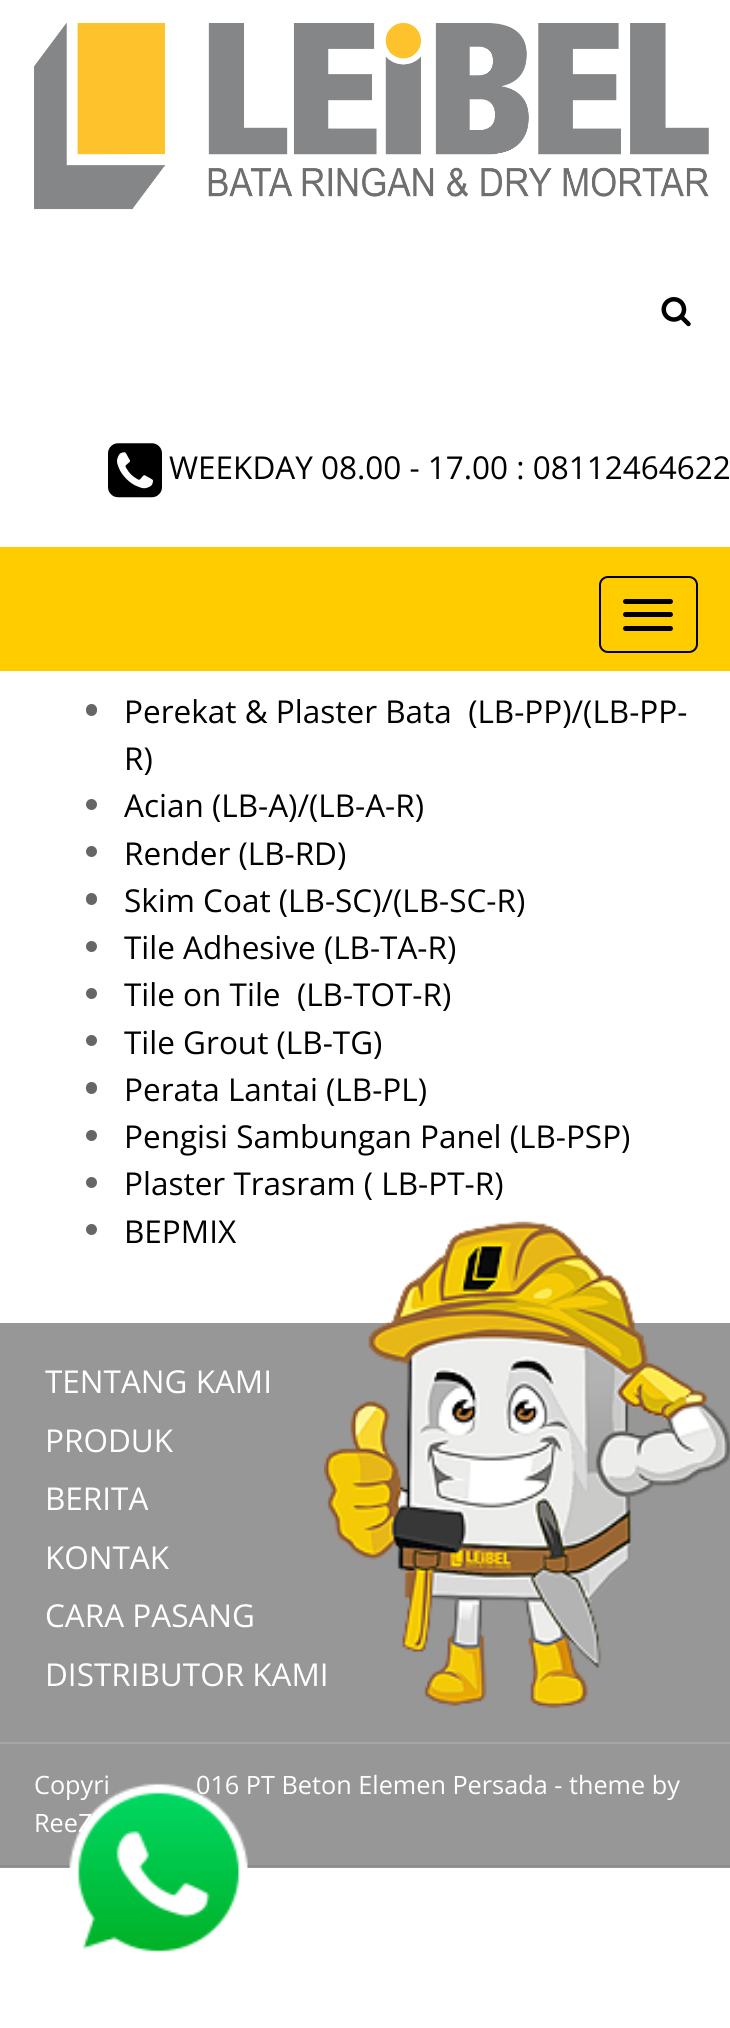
#include <cairo.h>
#include <math.h>
#include <stddef.h>


static void rgb(cairo_t *cr, int r, int g, int b)
{
	cairo_set_source_rgb(cr, r / 255.0, g / 255.0, b / 255.0);
}

static void face(cairo_t *cr, const char *family, double size, int italic, int bold)
{
	cairo_select_font_face(cr, family, italic ? CAIRO_FONT_SLANT_ITALIC : CAIRO_FONT_SLANT_NORMAL,
		bold ? CAIRO_FONT_WEIGHT_BOLD : CAIRO_FONT_WEIGHT_NORMAL);
	cairo_set_font_size(cr, size);
}

static void label(cairo_t *cr, double x, double y, const char *s)
{
	cairo_move_to(cr, x, y);
	cairo_show_text(cr, s);
}

static void rect(cairo_t *cr, double x, double y, double w, double h)
{
	cairo_rectangle(cr, x, y, w, h);
	cairo_fill(cr);
}

static void rrect(cairo_t *cr, double x, double y, double w, double h, double r)
{
	cairo_new_sub_path(cr);
	cairo_arc(cr, x + w - r, y + h - r, r, 0, M_PI / 2);
	cairo_arc(cr, x + r, y + h - r, r, M_PI / 2, M_PI);
	cairo_arc(cr, x + r, y + r, r, M_PI, 1.5 * M_PI);
	cairo_arc(cr, x + w - r, y + r, r, 1.5 * M_PI, 2 * M_PI);
	cairo_close_path(cr);
}

static void image(cairo_t *cr, const char *path, double x, double y, double w, double h)
{
	cairo_surface_t *image = cairo_image_surface_create_from_png(path);
	cairo_save(cr);
	cairo_set_source_surface(cr, image, x, y);
	cairo_rectangle(cr, x, y, w, h);
	cairo_fill(cr);
	cairo_restore(cr);
	cairo_surface_destroy(image);
}

static void draw(cairo_t *cr) {
	rgb(cr, 255, 255, 255);
	cairo_paint(cr);
	rgb(cr, 255, 204, 0);
	rect(cr, 0, 547, 730, 124);
	image(cr, "image0.png", 34, 23, 675, 187);
	image(cr, "image1.png", 661, 297, 30, 30);
	image(cr, "image2.png", 108, 443, 54, 55);
	face(cr, "Open Sans", 31.5, 0, 0);
	rgb(cr, 0, 0, 0);
	label(cr, 169, 479, "WEEKDAY 08.00 - 17.00 : 08112464622");
	rrect(cr, 600, 577, 97, 75, 8);
	cairo_stroke(cr);
	rrect(cr, 623, 599, 50, 5, 2.5);
	cairo_fill(cr);
	rrect(cr, 623, 612, 50, 5, 2.5);
	cairo_fill(cr);
	rrect(cr, 623, 626, 50, 5, 2.5);
	cairo_fill(cr);
	rgb(cr, 102, 102, 102);
	rrect(cr, 86, 704, 11, 12, 5.5);
	cairo_fill(cr);
	rgb(cr, 0, 0, 0);
	label(cr, 124, 723, "Perekat & Plaster Bata  (LB-PP)/(LB-PP-");
	label(cr, 124, 770, "R)");
	rgb(cr, 102, 102, 102);
	cairo_new_path(cr);
	cairo_arc(cr, 91.5, 804.5, 5.5, 0, 2 * M_PI);
	cairo_fill(cr);
	rgb(cr, 0, 0, 0);
	label(cr, 124, 817, "Acian (LB-A)/(LB-A-R)");
	rgb(cr, 102, 102, 102);
	cairo_new_path(cr);
	cairo_arc(cr, 91.5, 851.5, 5.5, 0, 2 * M_PI);
	cairo_fill(cr);
	rgb(cr, 0, 0, 0);
	label(cr, 124, 865, "Render (LB-RD)");
	rgb(cr, 102, 102, 102);
	rrect(cr, 86, 893, 11, 12, 5.5);
	cairo_fill(cr);
	rgb(cr, 0, 0, 0);
	label(cr, 124, 912, "Skim Coat (LB-SC)/(LB-SC-R)");
	rgb(cr, 102, 102, 102);
	cairo_new_path(cr);
	cairo_arc(cr, 91.5, 946.5, 5.5, 0, 2 * M_PI);
	cairo_fill(cr);
	rgb(cr, 0, 0, 0);
	label(cr, 124, 959, "Tile Adhesive (LB-TA-R)");
	rgb(cr, 102, 102, 102);
	cairo_new_path(cr);
	cairo_arc(cr, 91.5, 993.5, 5.5, 0, 2 * M_PI);
	cairo_fill(cr);
	rgb(cr, 0, 0, 0);
	label(cr, 124, 1006, "Tile on Tile  (LB-TOT-R)");
	rgb(cr, 102, 102, 102);
	cairo_new_path(cr);
	cairo_arc(cr, 91.5, 1040.5, 5.5, 0, 2 * M_PI);
	cairo_fill(cr);
	rgb(cr, 0, 0, 0);
	label(cr, 124, 1054, "Tile Grout (LB-TG)");
	rgb(cr, 102, 102, 102);
	rrect(cr, 86, 1082, 11, 12, 5.5);
	cairo_fill(cr);
	rgb(cr, 0, 0, 0);
	label(cr, 124, 1101, "Perata Lantai (LB-PL)");
	rgb(cr, 102, 102, 102);
	cairo_new_path(cr);
	cairo_arc(cr, 91.5, 1135.5, 5.5, 0, 2 * M_PI);
	cairo_fill(cr);
	rgb(cr, 0, 0, 0);
	label(cr, 124, 1148, "Pengisi Sambungan Panel (LB-PSP)");
	rgb(cr, 102, 102, 102);
	cairo_new_path(cr);
	cairo_arc(cr, 91.5, 1182.5, 5.5, 0, 2 * M_PI);
	cairo_fill(cr);
	rgb(cr, 0, 0, 0);
	label(cr, 124, 1195, "Plaster Trasram ( LB-PT-R)");
	rgb(cr, 102, 102, 102);
	cairo_new_path(cr);
	cairo_arc(cr, 91.5, 1229.5, 5.5, 0, 2 * M_PI);
	cairo_fill(cr);
	rgb(cr, 0, 0, 0);
	label(cr, 124, 1243, "BEPMIX");
	rgb(cr, 151, 151, 151);
	rect(cr, 0, 1323, 730, 545);
	rgb(cr, 140, 140, 140);
	rect(cr, 0, 1865, 730, 2);
	rgb(cr, 255, 255, 255);
	label(cr, 45, 1393, "TENTANG KAMI");
	label(cr, 45, 1452, "PRODUK");
	label(cr, 45, 1510, "BERITA");
	label(cr, 45, 1569, "KONTAK");
	label(cr, 45, 1627, "CARA PASANG");
	label(cr, 45, 1686, "DISTRIBUTOR KAMI");
	image(cr, "image3.png", 324, 1221, 406, 487);
	rgb(cr, 165, 165, 165);
	rect(cr, 0, 1742, 730, 2);
	face(cr, "Open Sans", 25.25, 0, 0);
	rgb(cr, 255, 255, 255);
	label(cr, 34, 1794, "Copyri");
	label(cr, 196, 1794, "016 PT Beton Elemen Persada - theme by");
	label(cr, 34, 1832, "ReeZ");
	image(cr, "image4.png", 69, 1783, 179, 169);
}

int main(void) {
	cairo_surface_t *surface = cairo_image_surface_create(CAIRO_FORMAT_RGB24, 730, 2028);
	cairo_t *cr = cairo_create(surface);
	cairo_font_options_t *options = cairo_font_options_create();
	cairo_font_options_set_hint_metrics(options, CAIRO_HINT_METRICS_OFF);
	cairo_font_options_set_hint_style(options, CAIRO_HINT_STYLE_NONE);
	cairo_set_font_options(cr, options);
	cairo_set_miter_limit(cr, 4);
	draw(cr);
	cairo_surface_write_to_png(surface, "render.png");
	cairo_font_options_destroy(options);
	cairo_destroy(cr);
	cairo_surface_destroy(surface);
	return 0;
}
